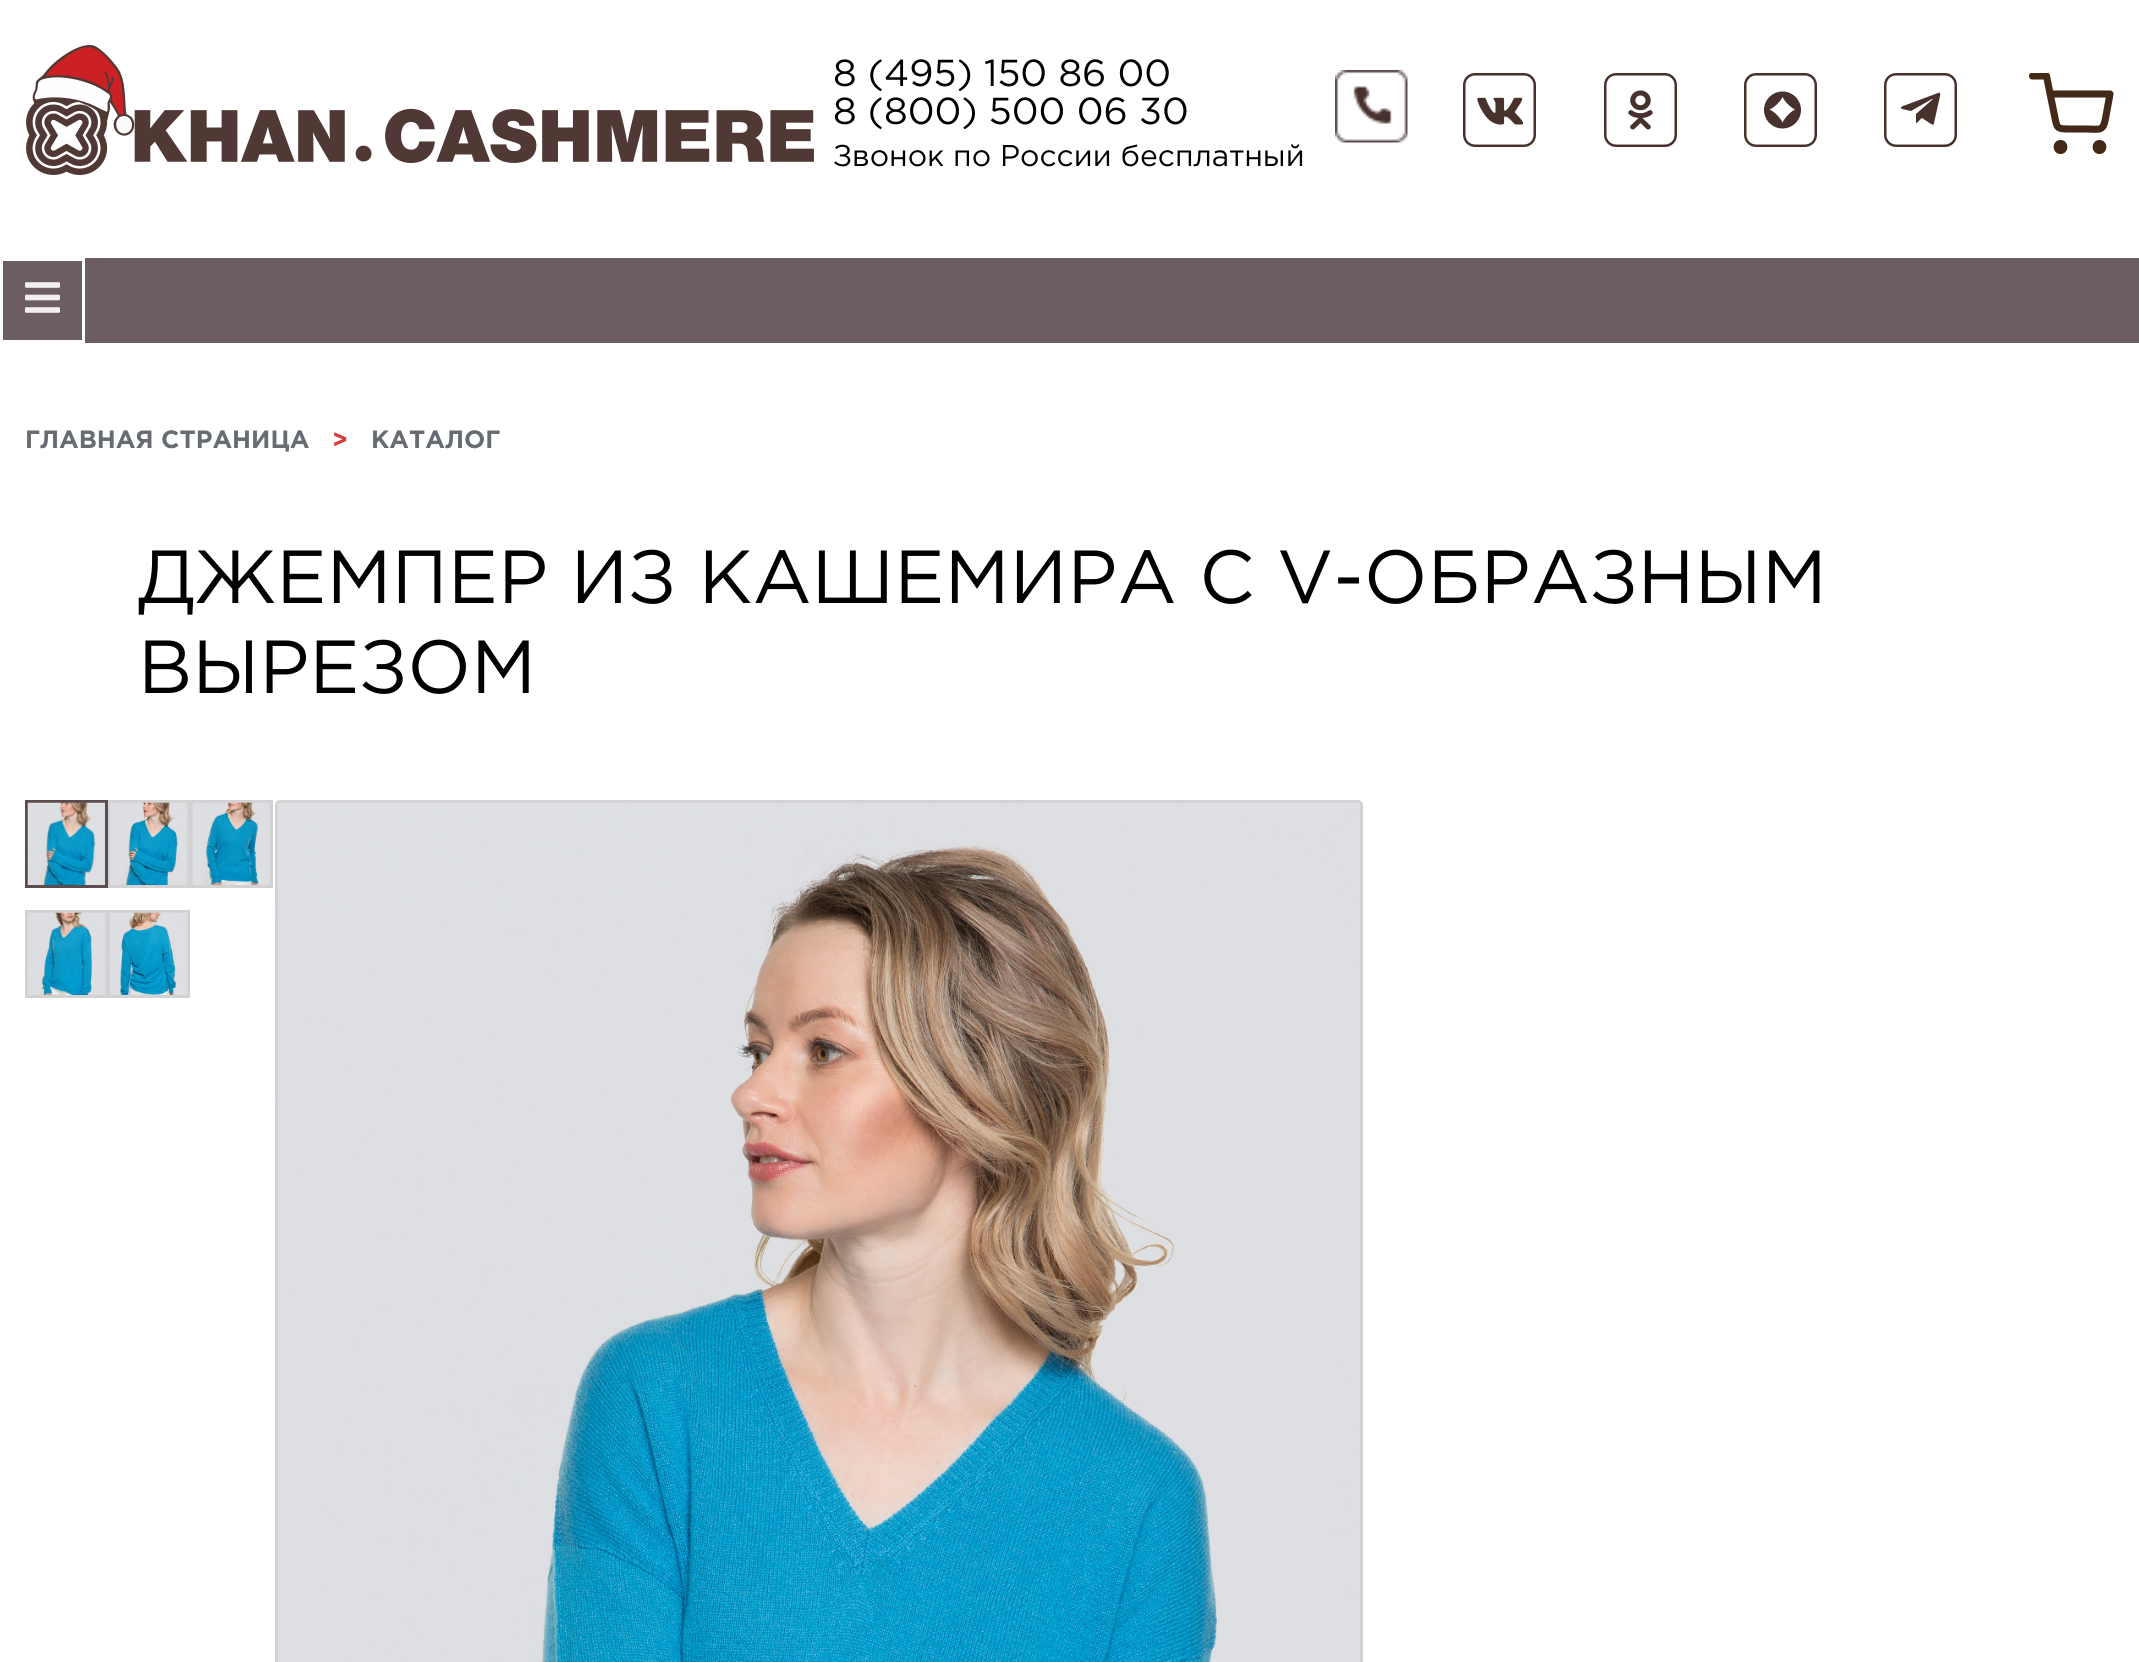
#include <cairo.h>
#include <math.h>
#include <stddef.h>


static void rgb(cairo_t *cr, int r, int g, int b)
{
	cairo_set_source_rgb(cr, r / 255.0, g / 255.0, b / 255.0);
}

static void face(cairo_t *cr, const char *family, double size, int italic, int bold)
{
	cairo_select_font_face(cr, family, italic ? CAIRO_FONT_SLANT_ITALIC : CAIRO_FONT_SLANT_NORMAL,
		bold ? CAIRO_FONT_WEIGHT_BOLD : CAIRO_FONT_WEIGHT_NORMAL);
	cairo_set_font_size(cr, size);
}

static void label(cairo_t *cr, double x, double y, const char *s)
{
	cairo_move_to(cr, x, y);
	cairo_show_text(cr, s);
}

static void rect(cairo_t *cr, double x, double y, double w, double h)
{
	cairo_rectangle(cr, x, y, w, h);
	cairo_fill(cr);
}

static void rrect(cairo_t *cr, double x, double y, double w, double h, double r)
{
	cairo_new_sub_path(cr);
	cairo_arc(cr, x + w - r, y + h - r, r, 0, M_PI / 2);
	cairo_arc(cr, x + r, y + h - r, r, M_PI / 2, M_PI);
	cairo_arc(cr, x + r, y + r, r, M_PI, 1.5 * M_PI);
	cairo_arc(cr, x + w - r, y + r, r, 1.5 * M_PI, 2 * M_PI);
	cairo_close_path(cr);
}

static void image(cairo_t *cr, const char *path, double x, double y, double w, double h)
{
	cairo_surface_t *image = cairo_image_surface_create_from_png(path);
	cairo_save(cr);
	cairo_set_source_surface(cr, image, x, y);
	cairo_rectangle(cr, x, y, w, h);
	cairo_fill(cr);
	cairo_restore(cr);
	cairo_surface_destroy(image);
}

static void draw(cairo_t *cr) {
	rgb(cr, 255, 255, 255);
	cairo_paint(cr);
	image(cr, "image0.png", 26, 45, 788, 130);
	face(cr, "Gotham", 37.5, 0, 0);
	rgb(cr, 0, 0, 0);
	label(cr, 833, 86, "8 (495) 150 86 00");
	label(cr, 833, 124, "8 (800) 500 06 30");
	face(cr, "Gotham", 30, 0, 0);
	label(cr, 833, 166, "Звонок по России бесплатный");
	image(cr, "image1.png", 1335, 70, 73, 73);
	image(cr, "image2.png", 1463, 73, 73, 74);
	image(cr, "image3.png", 1604, 73, 73, 74);
	rrect(cr, 1745.25, 74.25, 70.5, 71.5, 10.75);
	rgb(cr, 71, 49, 45);
	cairo_set_line_width(cr, 2.5);
	cairo_stroke(cr);
	cairo_arc(cr, 1782.5, 110, 18.5, 0, 2 * M_PI);
	cairo_fill(cr);
	rgb(cr, 255, 255, 255);
	cairo_new_path(cr);
	cairo_move_to(cr, 1782.5, 97);
	cairo_curve_to(cr, 1780, 102, 1775, 107, 1769.5, 109.5);
	cairo_curve_to(cr, 1775, 112, 1780, 117.5, 1782.5, 122.5);
	cairo_curve_to(cr, 1785, 117.5, 1790, 112, 1795, 109.5);
	cairo_curve_to(cr, 1790, 107, 1785, 102, 1782.5, 97);
	cairo_close_path(cr);
	cairo_fill(cr);
	rrect(cr, 1885.25, 74.25, 70.5, 71.5, 10.75);
	rgb(cr, 71, 49, 45);
	cairo_stroke(cr);
	cairo_new_path(cr);
	cairo_move_to(cr, 1940, 96);
	cairo_line_to(cr, 1934, 123);
	cairo_curve_to(cr, 1934, 125, 1933, 125, 1931, 124);
	cairo_line_to(cr, 1922, 118);
	cairo_curve_to(cr, 1920, 119, 1918, 123, 1916, 123);
	cairo_line_to(cr, 1916, 114);
	cairo_line_to(cr, 1933, 99);
	cairo_line_to(cr, 1932, 99);
	cairo_line_to(cr, 1911, 111);
	cairo_line_to(cr, 1902, 109);
	cairo_curve_to(cr, 1901, 108, 1900, 107, 1903, 106);
	cairo_line_to(cr, 1938, 93);
	cairo_curve_to(cr, 1939, 92, 1941, 93, 1940, 96);
	cairo_close_path(cr);
	cairo_fill(cr);
	cairo_new_path(cr);
	cairo_move_to(cr, 2060.5, 150.5);
	cairo_curve_to(cr, 2065, 150.5, 2065, 143.5, 2060.5, 143.5);
	cairo_curve_to(cr, 2056, 143.5, 2056, 150.5, 2060.5, 150.5);
	cairo_close_path(cr);
	cairo_move_to(cr, 2099.5, 150.5);
	cairo_curve_to(cr, 2104, 150.5, 2104, 143.5, 2099.5, 143.5);
	cairo_curve_to(cr, 2095, 143.5, 2095, 150.5, 2099.5, 150.5);
	cairo_close_path(cr);
	rgb(cr, 67, 41, 24);
	cairo_set_line_width(cr, 7.1);
	cairo_set_line_cap(cr, CAIRO_LINE_CAP_ROUND);
	cairo_set_line_join(cr, CAIRO_LINE_JOIN_ROUND);
	cairo_stroke(cr);
	cairo_save(cr);
	cairo_rectangle(cr, 2029, 73, 85, 85);
	cairo_clip(cr);
	cairo_new_path(cr);
	cairo_move_to(cr, 2032.5, 76);
	cairo_line_to(cr, 2046.5, 76);
	cairo_line_to(cr, 2054.5, 115.5);
	cairo_curve_to(cr, 2057, 128, 2056.5, 129, 2069, 129);
	cairo_line_to(cr, 2086, 129);
	cairo_curve_to(cr, 2099.5, 129, 2103, 132, 2105.5, 118.5);
	cairo_line_to(cr, 2110, 94);
	cairo_line_to(cr, 2050, 94);
	cairo_stroke(cr);
	cairo_restore(cr);
	rgb(cr, 108, 94, 96);
	rect(cr, 3, 258, 2136, 85);
	cairo_rectangle(cr, 1.5, 259.5, 82, 82);
	rgb(cr, 255, 255, 255);
	cairo_set_line_width(cr, 3);
	cairo_set_line_cap(cr, CAIRO_LINE_CAP_BUTT);
	cairo_set_line_join(cr, CAIRO_LINE_JOIN_MITER);
	cairo_stroke(cr);
	image(cr, "image4.png", 25, 282, 35, 31);
	face(cr, "Gotham", 25, 0, 1);
	rgb(cr, 103, 108, 114);
	label(cr, 25, 448, "ГЛАВНАЯ СТРАНИЦА");
	rgb(cr, 214, 58, 58);
	label(cr, 332, 448, ">");
	rgb(cr, 103, 108, 114);
	label(cr, 371, 448, "КАТАЛОГ");
	face(cr, "Gotham", 75, 0, 0);
	rgb(cr, 0, 0, 0);
	label(cr, 138, 603, "ДЖЕМПЕР ИЗ КАШЕМИРА C V-ОБРАЗНЫМ");
	label(cr, 138, 693, "ВЫРЕЗОМ");
	cairo_rectangle(cr, 26.5, 801.5, 80, 85);
	rgb(cr, 92, 76, 78);
	cairo_stroke(cr);
	image(cr, "image5.png", 27, 802, 78, 83);
	cairo_rectangle(cr, 109.5, 801.5, 79, 85);
	rgb(cr, 210, 210, 211);
	cairo_stroke(cr);
	image(cr, "image6.png", 110, 802, 78, 83);
	cairo_rectangle(cr, 191.5, 801.5, 80, 85);
	cairo_stroke(cr);
	image(cr, "image7.png", 192, 802, 78, 83);
	cairo_rectangle(cr, 26.5, 911.5, 80, 85);
	cairo_stroke(cr);
	image(cr, "image8.png", 27, 912, 78, 83);
	cairo_rectangle(cr, 109.5, 911.5, 79, 85);
	cairo_stroke(cr);
	image(cr, "image9.png", 110, 912, 78, 83);
	rrect(cr, 276.5, 801.5, 1085, 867, 3.5);
	cairo_stroke(cr);
	image(cr, "image10.png", 277, 802, 1083, 860);
}

int main(void) {
	cairo_surface_t *surface = cairo_image_surface_create(CAIRO_FORMAT_RGB24, 2139, 1662);
	cairo_t *cr = cairo_create(surface);
	cairo_font_options_t *options = cairo_font_options_create();
	cairo_font_options_set_hint_metrics(options, CAIRO_HINT_METRICS_OFF);
	cairo_font_options_set_hint_style(options, CAIRO_HINT_STYLE_NONE);
	cairo_set_font_options(cr, options);
	cairo_set_miter_limit(cr, 4);
	draw(cr);
	cairo_surface_write_to_png(surface, "render.png");
	cairo_font_options_destroy(options);
	cairo_destroy(cr);
	cairo_surface_destroy(surface);
	return 0;
}
